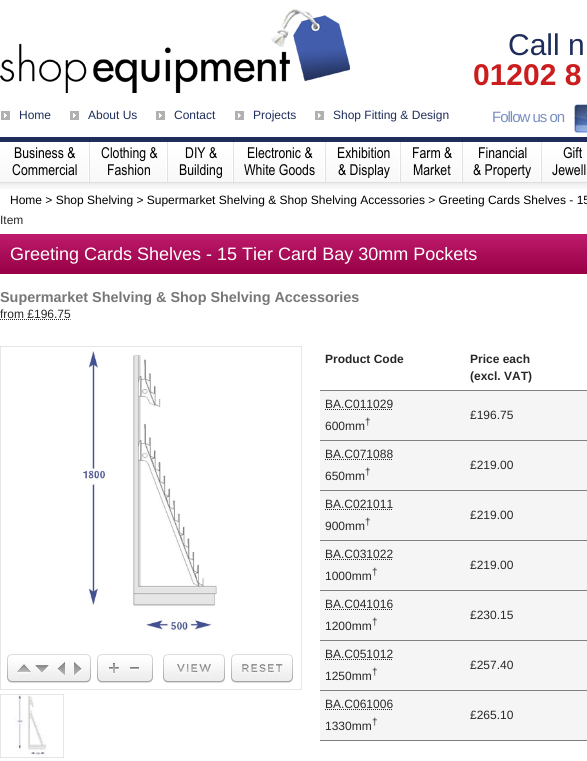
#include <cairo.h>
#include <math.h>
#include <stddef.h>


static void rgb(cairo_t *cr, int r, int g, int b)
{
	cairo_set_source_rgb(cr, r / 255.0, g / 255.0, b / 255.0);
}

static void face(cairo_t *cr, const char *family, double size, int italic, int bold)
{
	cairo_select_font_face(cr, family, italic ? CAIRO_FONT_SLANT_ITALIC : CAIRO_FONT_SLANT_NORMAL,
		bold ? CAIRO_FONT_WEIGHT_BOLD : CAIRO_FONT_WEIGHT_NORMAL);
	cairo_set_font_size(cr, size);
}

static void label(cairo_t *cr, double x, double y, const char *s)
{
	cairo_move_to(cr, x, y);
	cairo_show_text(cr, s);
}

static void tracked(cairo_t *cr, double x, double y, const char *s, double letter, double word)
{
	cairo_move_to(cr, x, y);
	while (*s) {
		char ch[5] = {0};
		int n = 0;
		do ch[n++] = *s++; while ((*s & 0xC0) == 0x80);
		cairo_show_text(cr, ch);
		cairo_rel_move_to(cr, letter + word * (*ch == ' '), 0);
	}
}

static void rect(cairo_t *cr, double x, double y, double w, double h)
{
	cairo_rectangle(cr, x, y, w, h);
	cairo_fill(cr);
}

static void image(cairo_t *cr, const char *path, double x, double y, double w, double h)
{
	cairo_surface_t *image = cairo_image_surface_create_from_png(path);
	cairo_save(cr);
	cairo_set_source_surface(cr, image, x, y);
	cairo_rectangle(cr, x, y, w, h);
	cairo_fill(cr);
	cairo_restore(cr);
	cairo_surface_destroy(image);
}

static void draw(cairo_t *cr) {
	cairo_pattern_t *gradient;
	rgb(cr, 255, 255, 255);
	cairo_paint(cr);
	image(cr, "image0.png", 0, 9, 350, 84);
	face(cr, "Liberation Sans", 30, 0, 0);
	rgb(cr, 30, 45, 92);
	label(cr, 508, 55, "Call n");
	face(cr, "Liberation Sans", 30, 0, 1);
	rgb(cr, 203, 29, 29);
	label(cr, 473, 85, "01202 8");
	image(cr, "image1.png", 1, 111, 9, 9);
	face(cr, "Liberation Sans", 12, 0, 0);
	rgb(cr, 30, 45, 92);
	label(cr, 19, 119, "Home");
	image(cr, "image1.png", 70, 111, 9, 9);
	label(cr, 88, 119, "About Us");
	image(cr, "image1.png", 156, 111, 9, 9);
	label(cr, 174, 119, "Contact");
	image(cr, "image1.png", 235, 111, 9, 9);
	label(cr, 253, 119, "Projects");
	image(cr, "image1.png", 315, 111, 9, 9);
	label(cr, 333, 119, "Shop Fitting & Design");
	face(cr, "Liberation Sans", 15, 0, 0);
	rgb(cr, 121, 142, 193);
	tracked(cr, 492, 122, "Follow us on", -1, 0);
	image(cr, "image2.png", 574, 104, 13, 29);
	image(cr, "image3.png", 0, 137, 587, 52);
	image(cr, "image4.png", 88, 142, 2, 40);
	face(cr, "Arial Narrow", 15, 0, 0);
	rgb(cr, 0, 0, 0);
	label(cr, 14, 158, "Business &");
	label(cr, 12, 175, "Commercial");
	image(cr, "image4.png", 166, 142, 2, 40);
	label(cr, 101, 158, "Clothing &");
	label(cr, 107, 175, "Fashion");
	image(cr, "image4.png", 232, 142, 2, 40);
	label(cr, 185, 158, "DIY &");
	label(cr, 179, 175, "Building");
	image(cr, "image4.png", 324, 142, 2, 40);
	label(cr, 247, 158, "Electronic &");
	label(cr, 244, 175, "White Goods");
	image(cr, "image4.png", 399, 142, 2, 40);
	label(cr, 337, 158, "Exhibition");
	label(cr, 338, 175, "& Display");
	image(cr, "image4.png", 461, 142, 2, 40);
	label(cr, 412, 158, "Farm &");
	label(cr, 413, 175, "Market");
	image(cr, "image4.png", 540, 142, 2, 40);
	label(cr, 478, 158, "Financial");
	label(cr, 473, 175, "& Property");
	label(cr, 563, 158, "Gift");
	label(cr, 552, 175, "Jewell");
	face(cr, "Liberation Sans", 12, 0, 0);
	label(cr, 10, 204, "Home > Shop Shelving > Supermarket Shelving & Shop Shelving Accessories > Greeting Cards Shelves - 15");
	rgb(cr, 40, 40, 40);
	label(cr, 0, 224, "Item");
	gradient = cairo_pattern_create_linear(0, 234, 0, 274);
	cairo_pattern_add_color_stop_rgba(gradient, 0, 0.749, 0.106, 0.424, 1);
	cairo_pattern_add_color_stop_rgba(gradient, 1, 0.592, 0, 0.267, 1);
	cairo_set_source(cr, gradient);
	cairo_pattern_destroy(gradient);
	rect(cr, 0, 234, 587, 40);
	face(cr, "Liberation Sans", 18, 0, 0);
	rgb(cr, 255, 255, 255);
	label(cr, 10, 260, "Greeting Cards Shelves - 15 Tier Card Bay 30mm Pockets");
	face(cr, "Liberation Sans", 14.4, 0, 1);
	rgb(cr, 119, 119, 119);
	label(cr, 0, 302, "Supermarket Shelving & Shop Shelving Accessories");
	face(cr, "Liberation Sans", 12, 0, 0);
	rgb(cr, 40, 40, 40);
	label(cr, 0, 318, "from £196.75");
	cairo_new_path(cr);
	cairo_move_to(cr, 0, 319.5);
	cairo_line_to(cr, 34, 319.5);
	cairo_set_line_width(cr, 1);
	cairo_set_dash(cr, (double[]){1, 1}, 2, 0);
	cairo_stroke(cr);
	cairo_new_path(cr);
	cairo_move_to(cr, 34, 319.5);
	cairo_line_to(cr, 70.5, 319.5);
	cairo_stroke(cr);
	cairo_rectangle(cr, 0.5, 346.5, 301, 343);
	rgb(cr, 230, 230, 230);
	cairo_set_dash(cr, NULL, 0, 0);
	cairo_stroke(cr);
	image(cr, "image5.png", 82, 351, 135, 280);
	image(cr, "image6.png", 7, 654, 25, 29);
	image(cr, "image7.png", 32, 654, 20, 29);
	image(cr, "image8.png", 52, 654, 18, 29);
	image(cr, "image9.png", 70, 654, 21, 29);
	image(cr, "image10.png", 97, 654, 28, 29);
	image(cr, "image11.png", 125, 654, 28, 29);
	image(cr, "image12.png", 163, 654, 62, 29);
	image(cr, "image13.png", 231, 654, 62, 29);
	cairo_rectangle(cr, 0.5, 694.5, 63, 63);
	cairo_stroke(cr);
	image(cr, "image14.png", 14, 695, 39, 62);
	face(cr, "Liberation Sans", 12, 0, 1);
	rgb(cr, 40, 40, 40);
	label(cr, 325, 363, "Product Code");
	label(cr, 470, 363, "Price each");
	label(cr, 470, 380, "(excl. VAT)");
	rgb(cr, 245, 245, 245);
	rect(cr, 320, 391, 267, 49);
	rgb(cr, 128, 128, 128);
	rect(cr, 320, 390, 267, 1);
	face(cr, "Liberation Sans", 12, 0, 0);
	rgb(cr, 40, 40, 40);
	label(cr, 325, 408, "BA.C011029");
	cairo_new_path(cr);
	cairo_move_to(cr, 325, 409.5);
	cairo_line_to(cr, 393, 409.5);
	cairo_set_dash(cr, (double[]){1, 1}, 2, 0);
	cairo_stroke(cr);
	label(cr, 325, 430, "600mm");
	face(cr, "Liberation Sans", 10, 0, 0);
	label(cr, 365, 425, "†");
	face(cr, "Liberation Sans", 12, 0, 0);
	label(cr, 470, 419, "£196.75");
	rgb(cr, 245, 245, 245);
	rect(cr, 320, 441, 267, 49);
	rgb(cr, 128, 128, 128);
	rect(cr, 320, 440, 267, 1);
	rgb(cr, 40, 40, 40);
	label(cr, 325, 458, "BA.C071088");
	cairo_new_path(cr);
	cairo_move_to(cr, 325, 459.5);
	cairo_line_to(cr, 393, 459.5);
	cairo_stroke(cr);
	label(cr, 325, 480, "650mm");
	face(cr, "Liberation Sans", 10, 0, 0);
	label(cr, 365, 475, "†");
	face(cr, "Liberation Sans", 12, 0, 0);
	label(cr, 470, 469, "£219.00");
	rgb(cr, 245, 245, 245);
	rect(cr, 320, 491, 267, 49);
	rgb(cr, 128, 128, 128);
	rect(cr, 320, 490, 267, 1);
	rgb(cr, 40, 40, 40);
	label(cr, 325, 508, "BA.C021011");
	cairo_new_path(cr);
	cairo_move_to(cr, 325, 509.5);
	cairo_line_to(cr, 393, 509.5);
	cairo_stroke(cr);
	label(cr, 325, 530, "900mm");
	face(cr, "Liberation Sans", 10, 0, 0);
	label(cr, 365, 525, "†");
	face(cr, "Liberation Sans", 12, 0, 0);
	label(cr, 470, 519, "£219.00");
	rgb(cr, 245, 245, 245);
	rect(cr, 320, 541, 267, 49);
	rgb(cr, 128, 128, 128);
	rect(cr, 320, 540, 267, 1);
	rgb(cr, 40, 40, 40);
	label(cr, 325, 558, "BA.C031022");
	cairo_new_path(cr);
	cairo_move_to(cr, 325, 559.5);
	cairo_line_to(cr, 393, 559.5);
	cairo_stroke(cr);
	label(cr, 325, 580, "1000mm");
	face(cr, "Liberation Sans", 10, 0, 0);
	label(cr, 372, 575, "†");
	face(cr, "Liberation Sans", 12, 0, 0);
	label(cr, 470, 569, "£219.00");
	rgb(cr, 245, 245, 245);
	rect(cr, 320, 591, 267, 49);
	rgb(cr, 128, 128, 128);
	rect(cr, 320, 590, 267, 1);
	rgb(cr, 40, 40, 40);
	label(cr, 325, 608, "BA.C041016");
	cairo_new_path(cr);
	cairo_move_to(cr, 325, 609.5);
	cairo_line_to(cr, 393, 609.5);
	cairo_stroke(cr);
	label(cr, 325, 630, "1200mm");
	face(cr, "Liberation Sans", 10, 0, 0);
	label(cr, 372, 625, "†");
	face(cr, "Liberation Sans", 12, 0, 0);
	label(cr, 470, 619, "£230.15");
	rgb(cr, 245, 245, 245);
	rect(cr, 320, 641, 267, 49);
	rgb(cr, 128, 128, 128);
	rect(cr, 320, 640, 267, 1);
	rgb(cr, 40, 40, 40);
	label(cr, 325, 658, "BA.C051012");
	cairo_new_path(cr);
	cairo_move_to(cr, 325, 659.5);
	cairo_line_to(cr, 393, 659.5);
	cairo_stroke(cr);
	label(cr, 325, 680, "1250mm");
	face(cr, "Liberation Sans", 10, 0, 0);
	label(cr, 372, 675, "†");
	face(cr, "Liberation Sans", 12, 0, 0);
	label(cr, 470, 669, "£257.40");
	rgb(cr, 245, 245, 245);
	rect(cr, 320, 691, 267, 49);
	rgb(cr, 128, 128, 128);
	rect(cr, 320, 690, 267, 1);
	rect(cr, 320, 740, 267, 1);
	rgb(cr, 40, 40, 40);
	label(cr, 325, 708, "BA.C061006");
	cairo_new_path(cr);
	cairo_move_to(cr, 325, 709.5);
	cairo_line_to(cr, 393, 709.5);
	cairo_stroke(cr);
	label(cr, 325, 730, "1330mm");
	face(cr, "Liberation Sans", 10, 0, 0);
	label(cr, 372, 725, "†");
	face(cr, "Liberation Sans", 12, 0, 0);
	label(cr, 470, 719, "£265.10");
}

int main(void) {
	cairo_surface_t *surface = cairo_image_surface_create(CAIRO_FORMAT_RGB24, 587, 761);
	cairo_t *cr = cairo_create(surface);
	cairo_font_options_t *options = cairo_font_options_create();
	cairo_font_options_set_hint_metrics(options, CAIRO_HINT_METRICS_OFF);
	cairo_font_options_set_hint_style(options, CAIRO_HINT_STYLE_NONE);
	cairo_set_font_options(cr, options);
	cairo_set_miter_limit(cr, 4);
	draw(cr);
	cairo_surface_write_to_png(surface, "render.png");
	cairo_font_options_destroy(options);
	cairo_destroy(cr);
	cairo_surface_destroy(surface);
	return 0;
}
